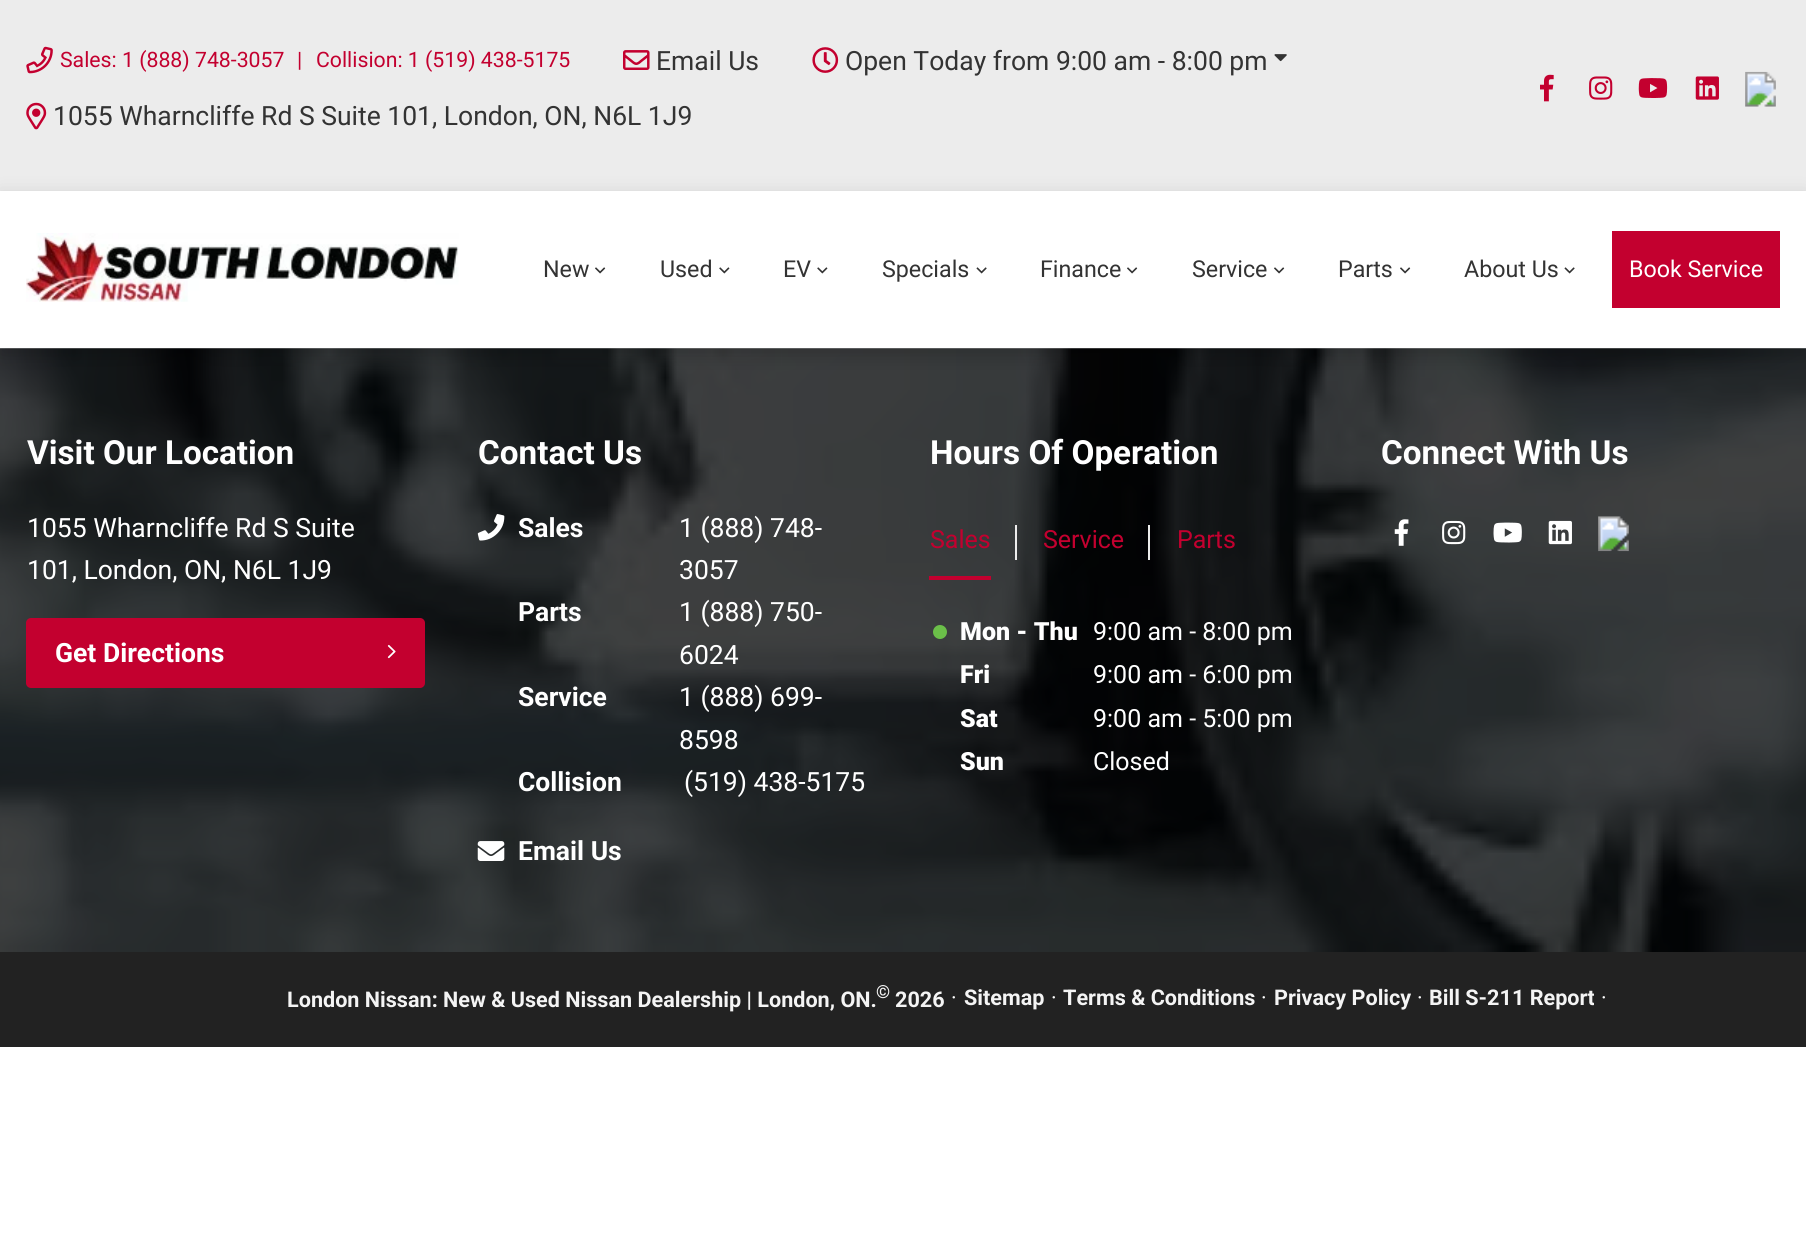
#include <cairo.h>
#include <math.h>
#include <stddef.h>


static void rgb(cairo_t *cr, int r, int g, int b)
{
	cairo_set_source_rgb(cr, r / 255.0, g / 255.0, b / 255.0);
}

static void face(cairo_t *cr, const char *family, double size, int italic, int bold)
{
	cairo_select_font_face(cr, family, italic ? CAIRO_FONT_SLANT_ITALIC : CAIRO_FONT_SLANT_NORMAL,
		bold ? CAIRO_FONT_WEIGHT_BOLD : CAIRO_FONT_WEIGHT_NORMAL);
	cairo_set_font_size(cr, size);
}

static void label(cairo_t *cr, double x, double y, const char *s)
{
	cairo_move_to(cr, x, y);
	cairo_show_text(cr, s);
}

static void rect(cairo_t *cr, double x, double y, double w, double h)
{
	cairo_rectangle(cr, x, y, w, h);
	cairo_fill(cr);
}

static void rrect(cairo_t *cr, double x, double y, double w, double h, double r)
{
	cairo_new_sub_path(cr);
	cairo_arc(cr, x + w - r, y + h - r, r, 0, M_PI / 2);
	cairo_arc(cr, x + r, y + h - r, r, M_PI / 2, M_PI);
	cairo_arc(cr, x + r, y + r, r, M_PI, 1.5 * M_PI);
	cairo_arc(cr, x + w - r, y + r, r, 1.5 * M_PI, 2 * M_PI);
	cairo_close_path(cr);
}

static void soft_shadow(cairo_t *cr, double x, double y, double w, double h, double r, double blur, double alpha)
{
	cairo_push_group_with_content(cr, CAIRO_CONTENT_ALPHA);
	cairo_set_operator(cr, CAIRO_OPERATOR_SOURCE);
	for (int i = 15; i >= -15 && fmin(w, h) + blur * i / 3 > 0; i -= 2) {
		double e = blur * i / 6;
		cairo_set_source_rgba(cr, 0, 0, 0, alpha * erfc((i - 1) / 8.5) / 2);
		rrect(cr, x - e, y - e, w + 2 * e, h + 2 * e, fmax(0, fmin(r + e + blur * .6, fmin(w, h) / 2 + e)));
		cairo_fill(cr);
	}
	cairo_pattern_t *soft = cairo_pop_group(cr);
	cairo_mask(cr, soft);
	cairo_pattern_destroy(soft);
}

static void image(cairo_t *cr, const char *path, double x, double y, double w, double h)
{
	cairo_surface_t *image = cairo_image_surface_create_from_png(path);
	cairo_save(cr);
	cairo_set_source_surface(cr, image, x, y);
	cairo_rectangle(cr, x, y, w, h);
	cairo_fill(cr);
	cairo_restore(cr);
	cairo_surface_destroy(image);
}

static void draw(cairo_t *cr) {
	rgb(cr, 255, 255, 255);
	cairo_paint(cr);
	rgb(cr, 236, 236, 236);
	rect(cr, 0, 0, 1806, 191);
	image(cr, "image0.png", 26, 46, 27, 28);
	face(cr, "Roboto", 21.25, 0, 0);
	rgb(cr, 195, 0, 47);
	label(cr, 60, 67, "Sales: 1 (888) 748-3057");
	label(cr, 297, 67, "|");
	label(cr, 316, 67, "Collision: 1 (519) 438-5175");
	image(cr, "image1.png", 623, 50, 27, 20);
	face(cr, "Roboto", 26.5, 0, 0);
	rgb(cr, 51, 51, 51);
	label(cr, 656, 70, "Email Us");
	image(cr, "image2.png", 812, 47, 27, 26);
	label(cr, 845, 70, "Open Today from 9:00 am - 8:00 pm");
	image(cr, "image3.png", 1274, 54, 13, 8);
	image(cr, "image4.png", 26, 102, 21, 28);
	label(cr, 53, 125, "1055 Wharncliffe Rd S Suite 101, London, ON, N6L 1J9");
	image(cr, "image5.png", 1540, 74, 14, 28);
	image(cr, "image6.png", 1589, 76, 24, 24);
	image(cr, "image7.png", 1638, 78, 30, 20);
	image(cr, "image8.png", 1695, 76, 24, 24);
	image(cr, "image9.png", 1745, 71, 31, 36);
	image(cr, "image14.png", 0, 348, 1806, 604);
	cairo_save(cr);
	cairo_set_fill_rule(cr, CAIRO_FILL_RULE_EVEN_ODD);
	cairo_new_path(cr);
	cairo_move_to(cr, 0, 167);
	cairo_line_to(cr, 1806, 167);
	cairo_line_to(cr, 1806, 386);
	cairo_line_to(cr, 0, 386);
	cairo_close_path(cr);
	cairo_move_to(cr, 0, 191);
	cairo_line_to(cr, 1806, 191);
	cairo_line_to(cr, 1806, 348);
	cairo_line_to(cr, 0, 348);
	cairo_close_path(cr);
	cairo_clip(cr);
	rgb(cr, 0, 0, 0);
	soft_shadow(cr, 0, 198, 1806, 157, 0, 10, 0.2);
	cairo_restore(cr);
	image(cr, "image10.png", 26, 233, 433, 69);
	face(cr, "Roboto", 23.25, 0, 0);
	label(cr, 543, 277, "New");
	image(cr, "image11.png", 595, 267, 11, 7);
	label(cr, 660, 277, "Used");
	image(cr, "image12.png", 719, 267, 11, 7);
	label(cr, 783, 277, "EV");
	image(cr, "image12.png", 817, 267, 11, 7);
	label(cr, 882, 277, "Specials");
	image(cr, "image13.png", 976, 267, 11, 7);
	label(cr, 1040, 277, "Finance");
	image(cr, "image11.png", 1127, 267, 11, 7);
	label(cr, 1192, 277, "Service");
	image(cr, "image11.png", 1274, 267, 11, 7);
	label(cr, 1338, 277, "Parts");
	image(cr, "image11.png", 1400, 267, 11, 7);
	label(cr, 1464, 277, "About Us");
	image(cr, "image13.png", 1564, 267, 11, 7);
	rgb(cr, 195, 0, 47);
	rect(cr, 1612, 231, 168, 77);
	rgb(cr, 255, 255, 255);
	label(cr, 1629, 277, "Book Service");
	face(cr, "Roboto", 33.25, 0, 1);
	label(cr, 27, 464, "Visit Our Location");
	face(cr, "Roboto", 26.5, 0, 0);
	label(cr, 27, 537, "1055 Wharncliffe Rd S Suite");
	label(cr, 27, 579, "101, London, ON, N6L 1J9");
	rgb(cr, 195, 0, 47);
	rrect(cr, 26, 618, 399, 70, 5);
	cairo_fill(cr);
	face(cr, "Roboto", 26.5, 0, 1);
	rgb(cr, 255, 255, 255);
	label(cr, 55, 662, "Get Directions");
	image(cr, "image15.png", 387, 644, 9, 15);
	face(cr, "Roboto", 33.25, 0, 1);
	label(cr, 478, 464, "Contact Us");
	image(cr, "image16.png", 477, 514, 28, 27);
	face(cr, "Roboto", 26.5, 0, 1);
	label(cr, 518, 537, "Sales");
	face(cr, "Roboto", 26.5, 0, 0);
	label(cr, 679, 537, "1 (888) 748-");
	label(cr, 679, 579, "3057");
	face(cr, "Roboto", 26.5, 0, 1);
	label(cr, 518, 621, "Parts");
	face(cr, "Roboto", 26.5, 0, 0);
	label(cr, 679, 621, "1 (888) 750-");
	label(cr, 679, 664, "6024");
	face(cr, "Roboto", 26.5, 0, 1);
	label(cr, 518, 706, "Service");
	face(cr, "Roboto", 26.5, 0, 0);
	label(cr, 679, 706, "1 (888) 699-");
	label(cr, 679, 749, "8598");
	face(cr, "Roboto", 26.5, 0, 1);
	label(cr, 518, 791, "Collision");
	face(cr, "Roboto", 26.5, 0, 0);
	label(cr, 684, 791, "(519) 438-5175");
	image(cr, "image17.png", 477, 841, 28, 20);
	face(cr, "Roboto", 26.5, 0, 1);
	label(cr, 518, 860, "Email Us");
	face(cr, "Roboto", 33.25, 0, 1);
	label(cr, 930, 464, "Hours Of Operation");
	rgb(cr, 195, 0, 47);
	rect(cr, 929, 576, 62, 4);
	face(cr, "Roboto", 25, 0, 0);
	label(cr, 930, 548, "Sales");
	rgb(cr, 236, 236, 236);
	rect(cr, 1015, 525, 2, 35);
	rgb(cr, 195, 0, 47);
	label(cr, 1043, 548, "Service");
	rgb(cr, 236, 236, 236);
	rect(cr, 1148, 525, 2, 35);
	rgb(cr, 195, 0, 47);
	label(cr, 1177, 548, "Parts");
	rgb(cr, 107, 191, 73);
	cairo_new_path(cr);
	cairo_arc(cr, 940, 632, 7, 0, 2 * M_PI);
	cairo_fill(cr);
	face(cr, "Roboto Black", 25, 0, 0);
	rgb(cr, 255, 255, 255);
	label(cr, 960, 640, "Mon - Thu");
	face(cr, "Roboto", 25, 0, 0);
	label(cr, 1093, 640, "9:00 am - 8:00 pm");
	face(cr, "Roboto Black", 25, 0, 0);
	label(cr, 960, 683, "Fri");
	face(cr, "Roboto", 25, 0, 0);
	label(cr, 1093, 683, "9:00 am - 6:00 pm");
	face(cr, "Roboto Black", 25, 0, 0);
	label(cr, 960, 727, "Sat");
	face(cr, "Roboto", 25, 0, 0);
	label(cr, 1093, 727, "9:00 am - 5:00 pm");
	face(cr, "Roboto Black", 25, 0, 0);
	label(cr, 960, 770, "Sun");
	face(cr, "Roboto", 25, 0, 0);
	label(cr, 1093, 770, "Closed");
	face(cr, "Roboto", 33.25, 0, 1);
	label(cr, 1381, 464, "Connect With Us");
	image(cr, "image18.png", 1394, 519, 15, 27);
	image(cr, "image19.png", 1442, 520, 24, 25);
	image(cr, "image20.png", 1493, 522, 29, 21);
	image(cr, "image21.png", 1548, 520, 24, 25);
	image(cr, "image22.png", 1598, 516, 31, 36);
	rgb(cr, 34, 34, 34);
	rect(cr, 0, 952, 1806, 95);
	face(cr, "Roboto", 21.6, 0, 1);
	rgb(cr, 244, 244, 244);
	label(cr, 287, 1007, "London Nissan: New & Used Nissan Dealership | London, ON.");
	face(cr, "Roboto", 18, 0, 1);
	label(cr, 876, 998, "©");
	face(cr, "Roboto", 21.6, 0, 1);
	label(cr, 895, 1007, "2026");
	face(cr, "Roboto", 21.6, 0, 0);
	rgb(cr, 255, 255, 255);
	label(cr, 951, 1005, "·");
	face(cr, "Roboto", 21.6, 0, 1);
	rgb(cr, 244, 244, 244);
	label(cr, 964, 1005, "Sitemap");
	face(cr, "Roboto", 21.6, 0, 0);
	rgb(cr, 255, 255, 255);
	label(cr, 1051, 1005, "·");
	face(cr, "Roboto", 21.6, 0, 1);
	rgb(cr, 244, 244, 244);
	label(cr, 1063, 1005, "Terms & Conditions");
	face(cr, "Roboto", 21.6, 0, 0);
	rgb(cr, 255, 255, 255);
	label(cr, 1261, 1005, "·");
	face(cr, "Roboto", 21.6, 0, 1);
	rgb(cr, 244, 244, 244);
	label(cr, 1274, 1005, "Privacy Policy");
	face(cr, "Roboto", 21.6, 0, 0);
	rgb(cr, 255, 255, 255);
	label(cr, 1417, 1005, "·");
	face(cr, "Roboto", 21.6, 0, 1);
	rgb(cr, 244, 244, 244);
	label(cr, 1429, 1005, "Bill S-211 Report");
	face(cr, "Roboto", 21.6, 0, 0);
	rgb(cr, 255, 255, 255);
	label(cr, 1601, 1005, "·");
}

int main(void) {
	cairo_surface_t *surface = cairo_image_surface_create(CAIRO_FORMAT_RGB24, 1806, 1238);
	cairo_t *cr = cairo_create(surface);
	cairo_font_options_t *options = cairo_font_options_create();
	cairo_font_options_set_hint_metrics(options, CAIRO_HINT_METRICS_OFF);
	cairo_font_options_set_hint_style(options, CAIRO_HINT_STYLE_NONE);
	cairo_set_font_options(cr, options);
	cairo_set_miter_limit(cr, 4);
	draw(cr);
	cairo_surface_write_to_png(surface, "render.png");
	cairo_font_options_destroy(options);
	cairo_destroy(cr);
	cairo_surface_destroy(surface);
	return 0;
}
